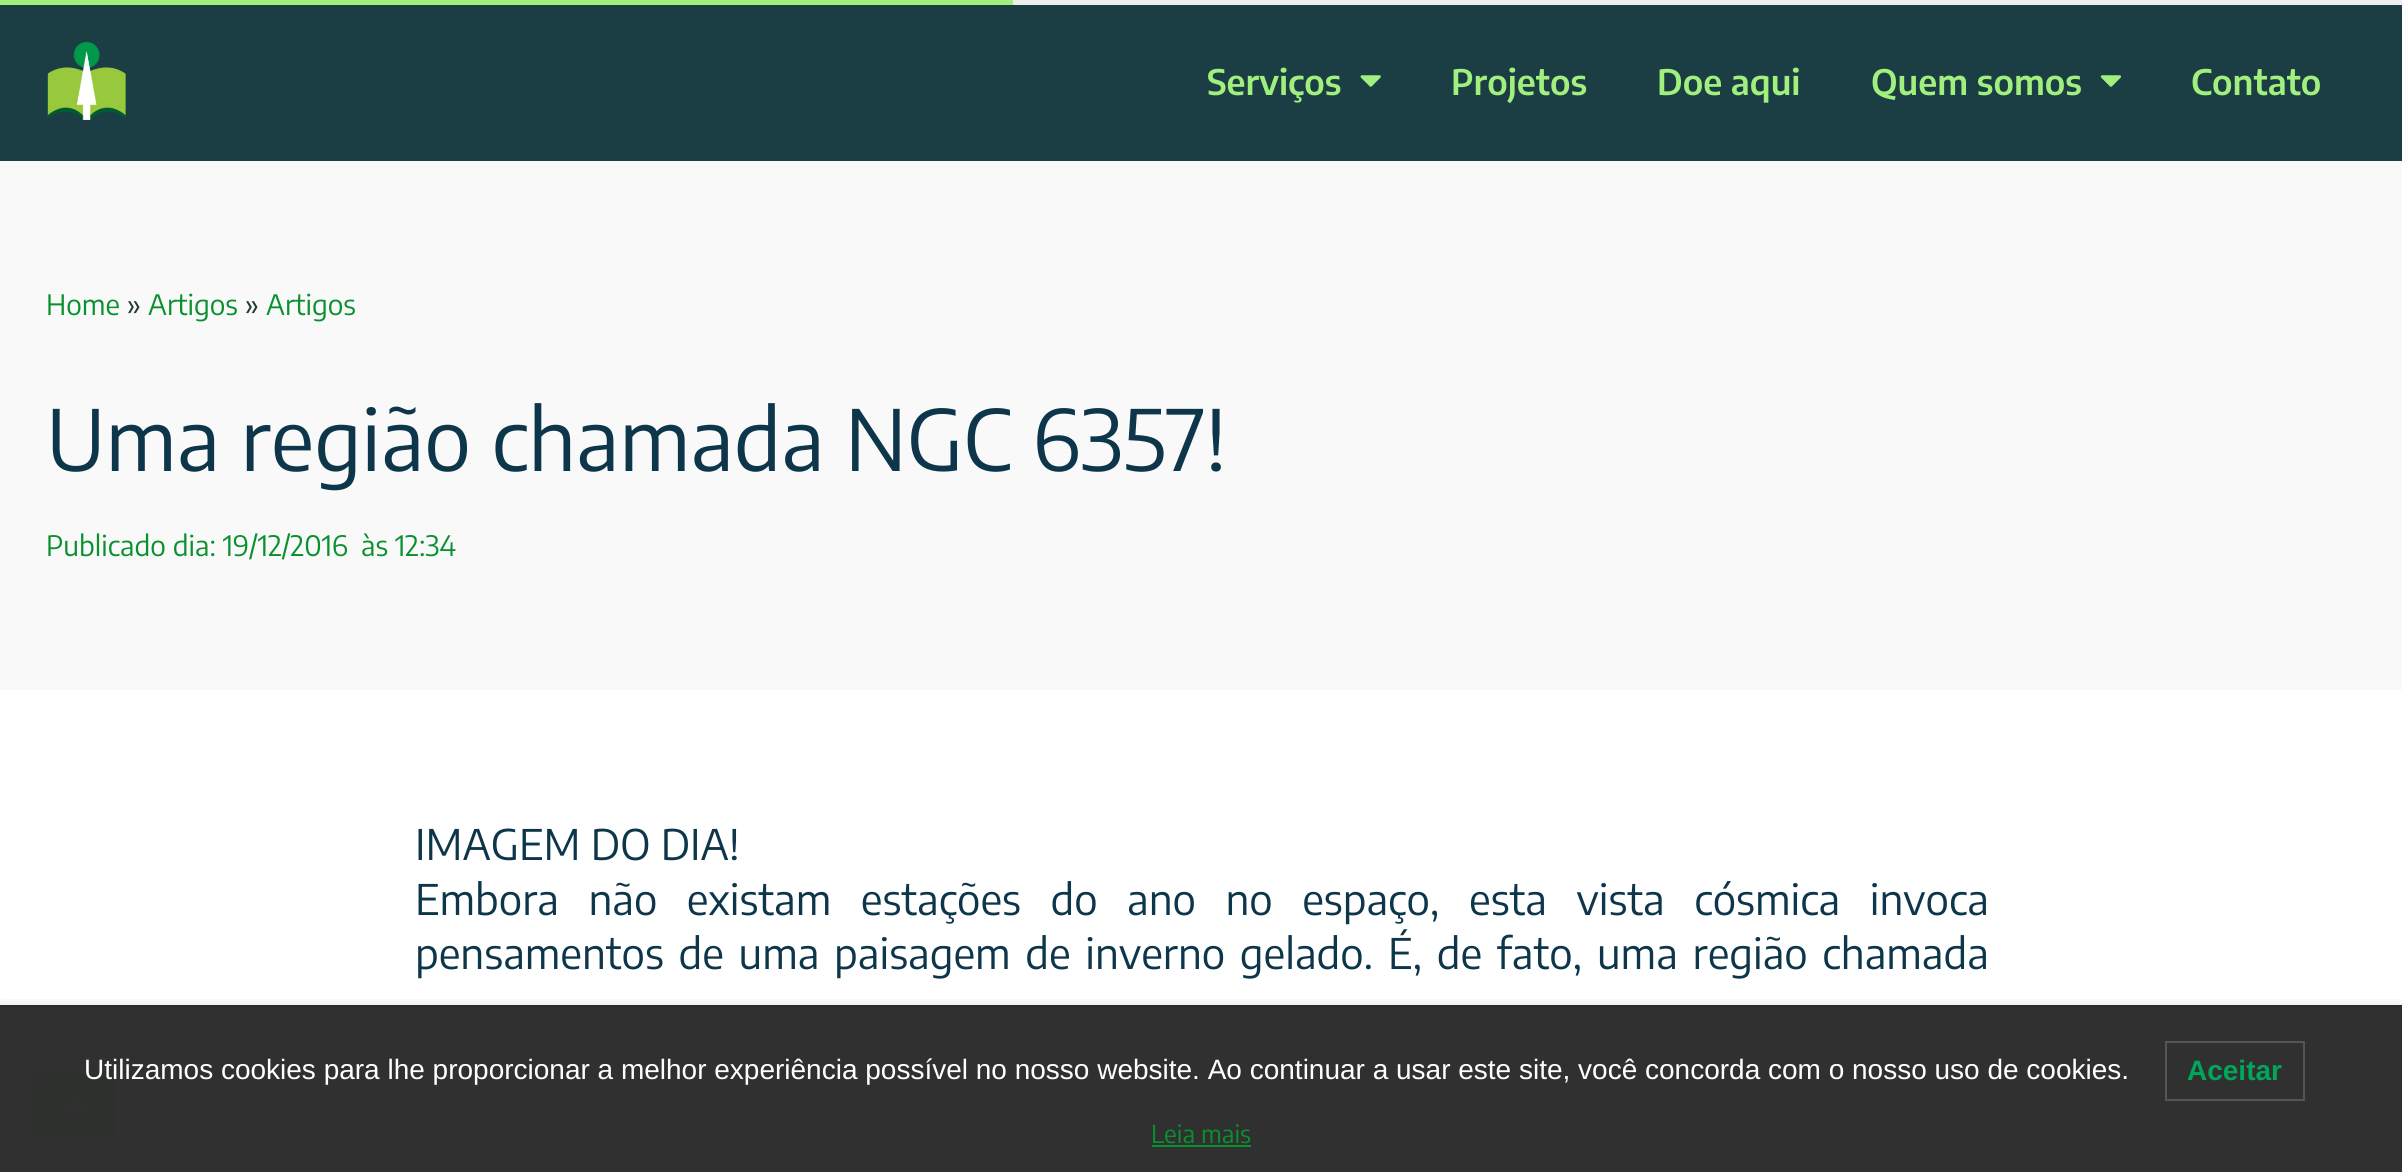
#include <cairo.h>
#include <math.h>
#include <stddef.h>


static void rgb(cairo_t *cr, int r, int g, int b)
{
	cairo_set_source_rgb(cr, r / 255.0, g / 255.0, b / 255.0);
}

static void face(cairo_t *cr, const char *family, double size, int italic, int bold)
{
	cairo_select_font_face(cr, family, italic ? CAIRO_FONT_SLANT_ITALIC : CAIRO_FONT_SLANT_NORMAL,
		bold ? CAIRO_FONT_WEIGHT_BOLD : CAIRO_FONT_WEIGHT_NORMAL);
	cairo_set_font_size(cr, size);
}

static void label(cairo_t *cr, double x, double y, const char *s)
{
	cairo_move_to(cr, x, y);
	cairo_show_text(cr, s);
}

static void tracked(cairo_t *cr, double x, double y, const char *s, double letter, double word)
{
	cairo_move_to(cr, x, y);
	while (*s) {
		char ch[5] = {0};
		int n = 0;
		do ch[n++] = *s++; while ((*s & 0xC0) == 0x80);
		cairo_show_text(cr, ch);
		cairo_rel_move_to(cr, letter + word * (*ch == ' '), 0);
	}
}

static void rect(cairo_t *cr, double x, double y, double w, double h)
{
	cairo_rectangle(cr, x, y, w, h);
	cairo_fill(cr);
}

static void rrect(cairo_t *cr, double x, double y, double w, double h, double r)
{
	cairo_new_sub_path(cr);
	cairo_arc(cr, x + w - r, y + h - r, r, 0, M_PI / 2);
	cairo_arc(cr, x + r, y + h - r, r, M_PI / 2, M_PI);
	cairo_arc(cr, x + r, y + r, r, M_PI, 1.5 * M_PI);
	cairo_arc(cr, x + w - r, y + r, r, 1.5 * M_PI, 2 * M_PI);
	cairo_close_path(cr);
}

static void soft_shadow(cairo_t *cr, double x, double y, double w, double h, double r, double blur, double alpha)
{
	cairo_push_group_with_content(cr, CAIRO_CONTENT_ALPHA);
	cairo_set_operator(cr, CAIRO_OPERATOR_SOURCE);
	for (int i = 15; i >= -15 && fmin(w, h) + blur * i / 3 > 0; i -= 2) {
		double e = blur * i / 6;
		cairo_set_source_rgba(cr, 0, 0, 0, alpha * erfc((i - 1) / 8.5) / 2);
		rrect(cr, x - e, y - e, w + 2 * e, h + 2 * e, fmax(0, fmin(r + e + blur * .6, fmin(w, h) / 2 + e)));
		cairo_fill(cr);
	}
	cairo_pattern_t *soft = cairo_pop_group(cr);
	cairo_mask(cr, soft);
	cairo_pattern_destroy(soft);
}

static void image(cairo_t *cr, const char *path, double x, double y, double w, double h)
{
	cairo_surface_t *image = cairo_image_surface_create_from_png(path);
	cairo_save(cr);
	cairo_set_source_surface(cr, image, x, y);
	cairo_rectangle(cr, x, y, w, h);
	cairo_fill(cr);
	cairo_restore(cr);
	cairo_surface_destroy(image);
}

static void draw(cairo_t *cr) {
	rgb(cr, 249, 249, 249);
	cairo_paint(cr);
	rgb(cr, 27, 62, 68);
	rect(cr, 0, 5, 2402, 156);
	image(cr, "image0.png", 47, 42, 79, 78);
	face(cr, "Encode Sans Condensed SemiBold", 35, 0, 0);
	rgb(cr, 161, 239, 125);
	label(cr, 1207, 95, "Serviços");
	image(cr, "image1.png", 1360, 75, 21, 12);
	label(cr, 1451, 95, "Projetos");
	label(cr, 1657, 95, "Doe aqui");
	label(cr, 1871, 95, "Quem somos");
	image(cr, "image2.png", 2100, 75, 22, 12);
	label(cr, 2191, 95, "Contato");
	rgb(cr, 238, 238, 238);
	rect(cr, 1013, 0, 1389, 5);
	rgb(cr, 161, 239, 125);
	rect(cr, 0, 0, 1013, 5);
	face(cr, "Encode Sans Condensed", 28, 0, 0);
	rgb(cr, 9, 144, 47);
	label(cr, 46, 315, "Home");
	rgb(cr, 34, 60, 47);
	label(cr, 127, 315, "»");
	rgb(cr, 9, 144, 47);
	label(cr, 148, 315, "Artigos");
	rgb(cr, 34, 60, 47);
	label(cr, 245, 315, "»");
	rgb(cr, 9, 144, 47);
	label(cr, 266, 315, "Artigos");
	face(cr, "Encode Sans Condensed", 84, 0, 0);
	rgb(cr, 14, 54, 74);
	label(cr, 46, 471, "Uma região chamada NGC 6357!");
	face(cr, "Encode Sans Condensed", 28, 0, 0);
	rgb(cr, 9, 144, 47);
	label(cr, 46, 556, "Publicado dia: 19/12/2016");
	label(cr, 361, 556, "às 12:34");
	rgb(cr, 255, 255, 255);
	rect(cr, 0, 690, 2402, 482);
	face(cr, "Encode Sans Condensed", 42, 0, 0);
	rgb(cr, 14, 54, 74);
	label(cr, 415, 860, "IMAGEM DO DIA!");
	tracked(cr, 415, 915, "Embora não existam estações do ano no espaço, esta vista cósmica invoca", 0, 19.25);
	tracked(cr, 415, 969, "pensamentos de uma paisagem de inverno gelado. É, de fato, uma região chamada", 0, 4.4);
	rgb(cr, 161, 239, 125);
	rect(cr, 35, 1073, 81, 65);
	image(cr, "image3.png", 63, 1092, 25, 25);
	cairo_save(cr);
	cairo_rectangle(cr, 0, 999, 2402, 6);
	cairo_clip(cr);
	rgb(cr, 0, 0, 0);
	soft_shadow(cr, 0, 1005, 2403, 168, 0, 7, 0.1);
	cairo_restore(cr);
	cairo_set_source_rgba(cr, 0.169, 0.169, 0.169, 0.97);
	rect(cr, 0, 1007, 2402, 165);
	rgb(cr, 43, 43, 43);
	rect(cr, 0, 1005, 2402, 2);
	face(cr, "Liberation Sans", 28, 0, 0);
	rgb(cr, 255, 255, 255);
	label(cr, 84, 1079, "Utilizamos cookies para lhe proporcionar a melhor experiência possível no nosso website. Ao continuar a usar este site, você concorda com o nosso uso de cookies.");
	cairo_rectangle(cr, 2166, 1042, 138, 58);
	rgb(cr, 85, 85, 85);
	cairo_stroke(cr);
	face(cr, "Liberation Sans", 28, 0, 1);
	rgb(cr, 0, 166, 90);
	label(cr, 2187, 1080, "Aceitar");
	face(cr, "Encode Sans Condensed", 24.5, 0, 0);
	rgb(cr, 9, 144, 47);
	label(cr, 1151, 1143, "Leia mais");
	rect(cr, 1152, 1145, 99, 2);
}

int main(void) {
	cairo_surface_t *surface = cairo_image_surface_create(CAIRO_FORMAT_RGB24, 2402, 1172);
	cairo_t *cr = cairo_create(surface);
	cairo_font_options_t *options = cairo_font_options_create();
	cairo_font_options_set_hint_metrics(options, CAIRO_HINT_METRICS_OFF);
	cairo_font_options_set_hint_style(options, CAIRO_HINT_STYLE_NONE);
	cairo_set_font_options(cr, options);
	cairo_set_miter_limit(cr, 4);
	draw(cr);
	cairo_surface_write_to_png(surface, "render.png");
	cairo_font_options_destroy(options);
	cairo_destroy(cr);
	cairo_surface_destroy(surface);
	return 0;
}
